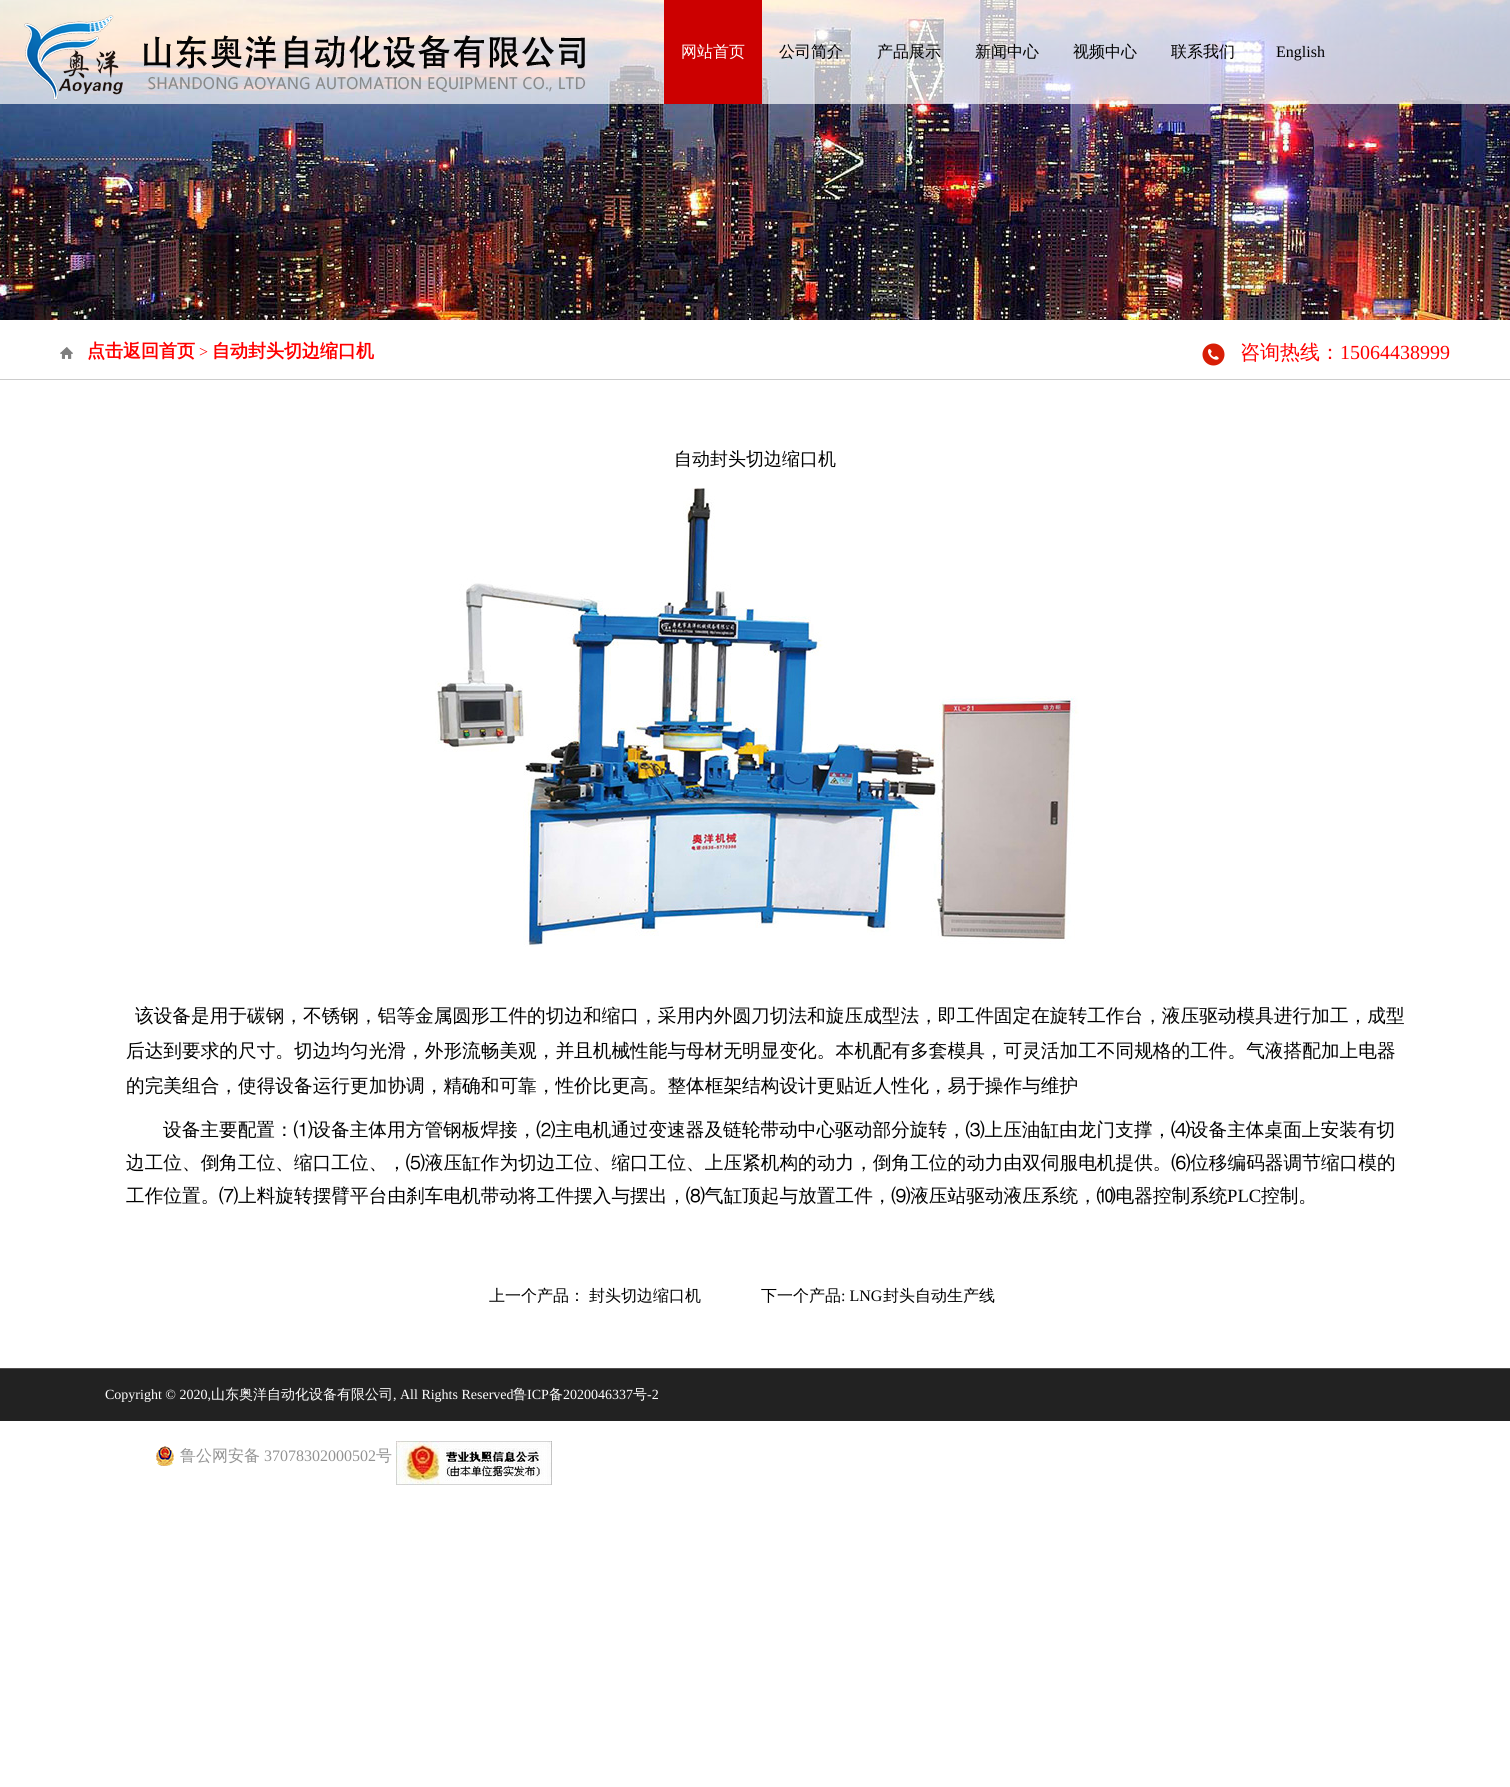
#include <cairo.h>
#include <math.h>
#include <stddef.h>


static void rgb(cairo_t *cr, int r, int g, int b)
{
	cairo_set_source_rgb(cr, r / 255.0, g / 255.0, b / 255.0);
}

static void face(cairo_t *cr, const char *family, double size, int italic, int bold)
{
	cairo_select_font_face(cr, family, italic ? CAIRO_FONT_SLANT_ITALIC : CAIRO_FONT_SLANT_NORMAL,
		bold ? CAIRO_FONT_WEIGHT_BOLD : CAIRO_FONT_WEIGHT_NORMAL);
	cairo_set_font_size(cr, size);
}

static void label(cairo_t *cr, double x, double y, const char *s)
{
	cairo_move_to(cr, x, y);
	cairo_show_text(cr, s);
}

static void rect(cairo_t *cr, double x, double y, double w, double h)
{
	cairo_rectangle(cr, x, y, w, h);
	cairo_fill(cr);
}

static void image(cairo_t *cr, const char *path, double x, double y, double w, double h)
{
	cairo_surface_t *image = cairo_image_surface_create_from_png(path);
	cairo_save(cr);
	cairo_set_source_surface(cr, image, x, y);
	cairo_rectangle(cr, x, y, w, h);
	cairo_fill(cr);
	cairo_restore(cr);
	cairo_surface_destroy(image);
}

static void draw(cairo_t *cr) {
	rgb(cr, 255, 255, 255);
	cairo_paint(cr);
	image(cr, "image0.png", 0, 0, 1510, 320);
	cairo_set_source_rgba(cr, 1, 1, 1, 0.7);
	rect(cr, 0, 0, 1510, 104);
	image(cr, "image1.png", 24, 15, 562, 85);
	rgb(cr, 204, 0, 0);
	rect(cr, 664, 0, 98, 104);
	face(cr, "WenQuanYi Zen Hei Medium", 16, 0, 0);
	rgb(cr, 255, 255, 255);
	label(cr, 681, 57, "网站首页");
	rgb(cr, 0, 0, 0);
	label(cr, 779, 57, "公司简介");
	label(cr, 877, 57, "产品展示");
	label(cr, 975, 57, "新闻中心");
	label(cr, 1073, 57, "视频中心");
	label(cr, 1171, 57, "联系我们");
	face(cr, "Liberation Serif", 16, 0, 0);
	label(cr, 1276, 57, "English");
	rgb(cr, 204, 204, 204);
	rect(cr, 0, 379, 1510, 1);
	image(cr, "image2.png", 60, 347, 13, 12);
	face(cr, "WenQuanYi Zen Hei", 18, 0, 1);
	rgb(cr, 255, 0, 0);
	label(cr, 87, 357, "点击返回首页");
	face(cr, "Liberation Serif", 16, 0, 0);
	label(cr, 199, 357, ">");
	face(cr, "WenQuanYi Zen Hei", 18, 0, 1);
	label(cr, 212, 357, "自动封头切边缩口机");
	image(cr, "image3.png", 1202, 343, 23, 23);
	face(cr, "WenQuanYi Zen Hei Medium", 20, 0, 0);
	label(cr, 1240, 359, "咨询热线：");
	face(cr, "Liberation Serif", 20, 0, 0);
	label(cr, 1340, 359, "15064438999");
	face(cr, "WenQuanYi Zen Hei Medium", 18, 0, 0);
	rgb(cr, 0, 0, 0);
	label(cr, 674, 465, "自动封头切边缩口机");
	image(cr, "image4.png", 435, 488, 644, 459);
	face(cr, "WenQuanYi Zen Hei Medium", 18.67, 0, 0);
	label(cr, 135, 1022, "该设备是用于碳钢，不锈钢，铝等金属圆形工件的切边和缩口，采用内外圆刀切法和旋压成型法，即工件固定在旋转工作台，液压驱动模具进行加工，成型");
	label(cr, 126, 1057, "后达到要求的尺寸。切边均匀光滑，外形流畅美观，并且机械性能与母材无明显变化。本机配有多套模具，可灵活加工不同规格的工件。气液搭配加上电器");
	label(cr, 126, 1092, "的完美组合，使得设备运行更加协调，精确和可靠，性价比更高。整体框架结构设计更贴近人性化，易于操作与维护");
	label(cr, 163, 1136, "设备主要配置：⑴设备主体用方管钢板焊接，⑵主电机通过变速器及链轮带动中心驱动部分旋转，⑶上压油缸由龙门支撑，⑷设备主体桌面上安装有切");
	label(cr, 126, 1169, "边工位、倒角工位、缩口工位、，⑸液压缸作为切边工位、缩口工位、上压紧机构的动力，倒角工位的动力由双伺服电机提供。⑹位移编码器调节缩口模的");
	label(cr, 126, 1202, "工作位置。⑺上料旋转摆臂平台由刹车电机带动将工件摆入与摆出，⑻气缸顶起与放置工件，⑼液压站驱动液压系统，⑽电器控制系统");
	face(cr, "Liberation Serif", 18.67, 0, 0);
	label(cr, 1227, 1202, "PLC");
	face(cr, "WenQuanYi Zen Hei Medium", 18.67, 0, 0);
	label(cr, 1261, 1202, "控制。");
	face(cr, "WenQuanYi Zen Hei Medium", 16, 0, 0);
	label(cr, 489, 1301, "上一个产品：");
	label(cr, 589, 1301, "封头切边缩口机");
	label(cr, 761, 1301, "下一个产品");
	face(cr, "Liberation Serif", 16, 0, 0);
	label(cr, 841, 1301, ": LNG");
	face(cr, "WenQuanYi Zen Hei Medium", 16, 0, 0);
	label(cr, 883, 1301, "封头自动生产线");
	rgb(cr, 34, 34, 34);
	rect(cr, 0, 1369, 1510, 52);
	rgb(cr, 81, 79, 79);
	rect(cr, 0, 1368, 1510, 1);
	face(cr, "Liberation Serif", 14, 0, 0);
	rgb(cr, 255, 255, 255);
	label(cr, 105, 1399, "Copyright © 2020,");
	face(cr, "WenQuanYi Zen Hei Medium", 14, 0, 0);
	label(cr, 211, 1399, "山东奥洋自动化设备有限公司");
	face(cr, "Liberation Serif", 14, 0, 0);
	label(cr, 393, 1399, ", All Rights Reserved");
	face(cr, "WenQuanYi Zen Hei Medium", 14, 0, 0);
	label(cr, 513, 1399, "鲁");
	face(cr, "Liberation Serif", 14, 0, 0);
	label(cr, 527, 1399, "ICP");
	face(cr, "WenQuanYi Zen Hei Medium", 14, 0, 0);
	label(cr, 549, 1399, "备");
	face(cr, "Liberation Serif", 14, 0, 0);
	label(cr, 563, 1399, "2020046337");
	face(cr, "WenQuanYi Zen Hei Medium", 14, 0, 0);
	label(cr, 633, 1399, "号");
	face(cr, "Liberation Serif", 14, 0, 0);
	label(cr, 647, 1399, "-2");
	image(cr, "image5.png", 156, 1446, 18, 20);
	face(cr, "WenQuanYi Zen Hei Medium", 16, 0, 0);
	rgb(cr, 147, 147, 147);
	label(cr, 180, 1461, "鲁公网安备");
	face(cr, "Liberation Serif", 16, 0, 0);
	label(cr, 264, 1461, "37078302000502");
	face(cr, "WenQuanYi Zen Hei Medium", 16, 0, 0);
	label(cr, 376, 1461, "号");
	image(cr, "image6.png", 396, 1441, 156, 44);
}

int main(void) {
	cairo_surface_t *surface = cairo_image_surface_create(CAIRO_FORMAT_RGB24, 1510, 1787);
	cairo_t *cr = cairo_create(surface);
	cairo_font_options_t *options = cairo_font_options_create();
	cairo_font_options_set_hint_metrics(options, CAIRO_HINT_METRICS_OFF);
	cairo_font_options_set_hint_style(options, CAIRO_HINT_STYLE_NONE);
	cairo_set_font_options(cr, options);
	cairo_set_miter_limit(cr, 4);
	draw(cr);
	cairo_surface_write_to_png(surface, "render.png");
	cairo_font_options_destroy(options);
	cairo_destroy(cr);
	cairo_surface_destroy(surface);
	return 0;
}
